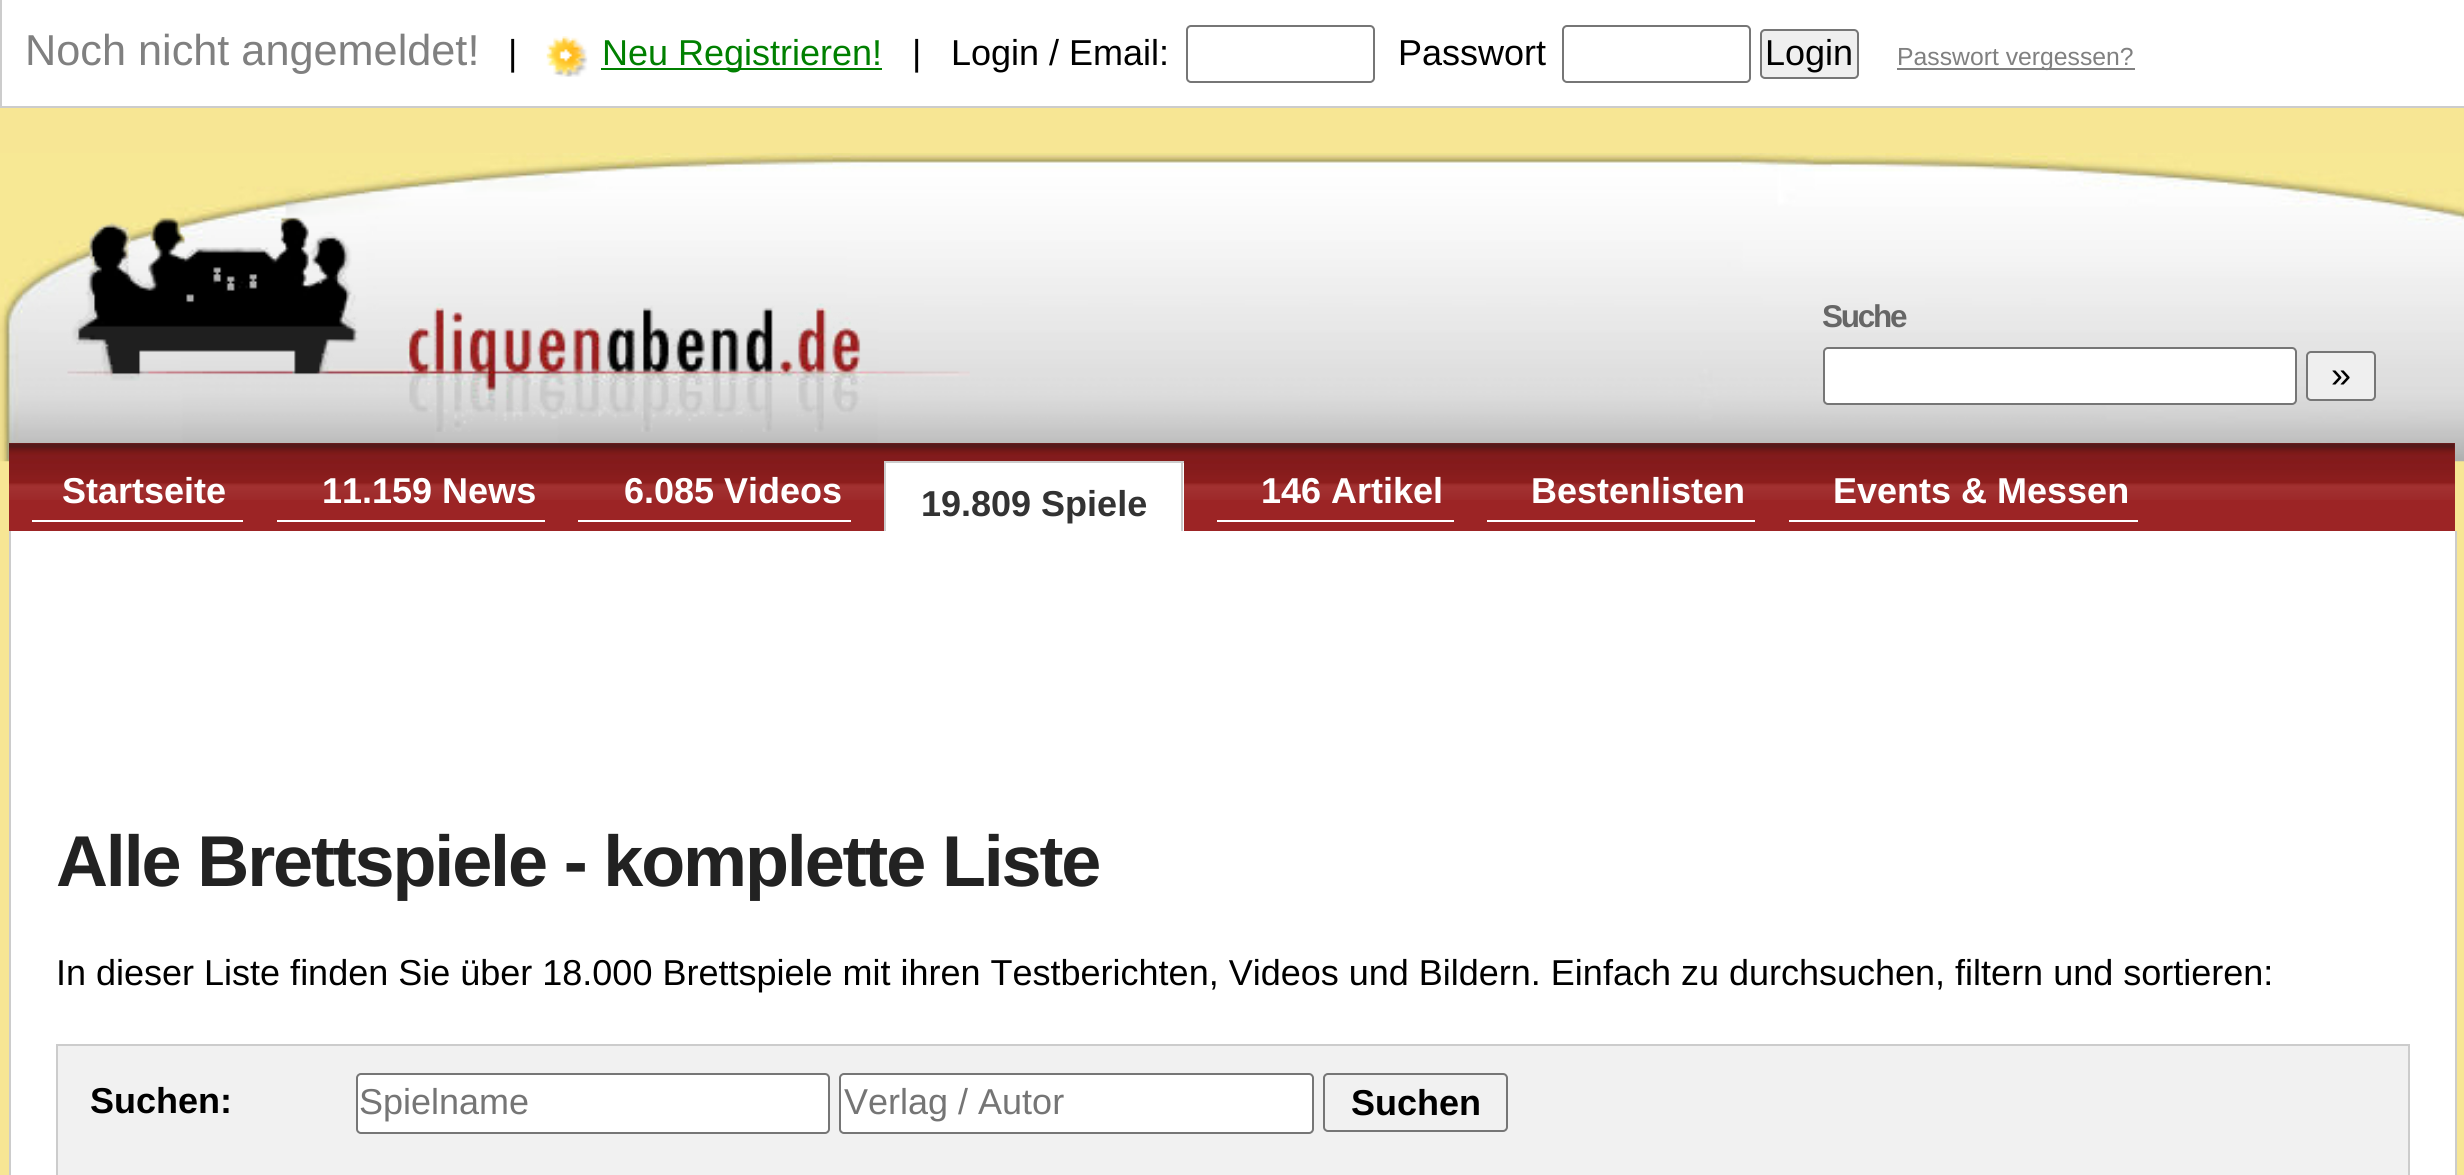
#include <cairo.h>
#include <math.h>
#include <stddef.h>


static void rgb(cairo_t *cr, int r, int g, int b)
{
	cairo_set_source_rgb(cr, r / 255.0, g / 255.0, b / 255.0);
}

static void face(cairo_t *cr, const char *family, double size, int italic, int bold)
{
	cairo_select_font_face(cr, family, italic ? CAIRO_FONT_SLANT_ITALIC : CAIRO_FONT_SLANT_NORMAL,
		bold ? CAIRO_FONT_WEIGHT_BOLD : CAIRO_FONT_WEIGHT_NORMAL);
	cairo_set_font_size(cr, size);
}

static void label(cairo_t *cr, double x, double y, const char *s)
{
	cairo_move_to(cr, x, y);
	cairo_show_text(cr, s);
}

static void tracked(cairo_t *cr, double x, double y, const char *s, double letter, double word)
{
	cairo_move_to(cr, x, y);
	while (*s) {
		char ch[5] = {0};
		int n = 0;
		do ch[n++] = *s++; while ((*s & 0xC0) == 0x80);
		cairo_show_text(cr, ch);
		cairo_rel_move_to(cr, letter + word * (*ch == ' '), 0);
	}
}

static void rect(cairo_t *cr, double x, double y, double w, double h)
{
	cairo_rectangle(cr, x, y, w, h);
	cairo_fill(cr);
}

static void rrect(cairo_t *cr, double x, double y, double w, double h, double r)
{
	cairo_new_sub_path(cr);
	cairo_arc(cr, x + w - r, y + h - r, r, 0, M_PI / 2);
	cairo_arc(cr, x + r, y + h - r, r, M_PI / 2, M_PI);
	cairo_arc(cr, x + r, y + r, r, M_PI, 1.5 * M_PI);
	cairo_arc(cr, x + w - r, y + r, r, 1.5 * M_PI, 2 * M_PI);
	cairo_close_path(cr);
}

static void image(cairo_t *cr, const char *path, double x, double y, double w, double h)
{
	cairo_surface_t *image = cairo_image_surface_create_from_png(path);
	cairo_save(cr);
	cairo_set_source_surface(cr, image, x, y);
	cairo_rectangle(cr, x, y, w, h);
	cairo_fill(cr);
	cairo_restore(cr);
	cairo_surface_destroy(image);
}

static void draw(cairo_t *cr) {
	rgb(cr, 247, 230, 148);
	cairo_paint(cr);
	rgb(cr, 255, 255, 255);
	rect(cr, 2, 0, 2462, 106);
	rgb(cr, 204, 204, 204);
	rect(cr, 0, 106, 2464, 2);
	rect(cr, 0, 0, 2, 108);
	face(cr, "Liberation Sans", 43.25, 0, 0);
	rgb(cr, 128, 128, 128);
	label(cr, 25, 65, "Noch nicht angemeldet!");
	face(cr, "Liberation Sans", 36, 0, 0);
	rgb(cr, 0, 0, 0);
	label(cr, 508, 65, "|");
	image(cr, "image0.png", 546, 36, 42, 41);
	rgb(cr, 0, 128, 0);
	rect(cr, 601, 68, 281, 2);
	label(cr, 602, 65, "Neu Registrieren!");
	rgb(cr, 0, 0, 0);
	label(cr, 912, 65, "|");
	label(cr, 951, 65, "Login / Email:");
	rrect(cr, 1187, 26, 187, 56, 4);
	rgb(cr, 118, 118, 118);
	cairo_stroke(cr);
	rgb(cr, 0, 0, 0);
	label(cr, 1398, 65, "Passwort");
	rrect(cr, 1563, 26, 187, 56, 4);
	rgb(cr, 118, 118, 118);
	cairo_stroke(cr);
	rgb(cr, 239, 239, 239);
	rrect(cr, 1761, 30, 97, 48, 4);
	cairo_fill_preserve(cr);
	rgb(cr, 118, 118, 118);
	cairo_stroke(cr);
	rgb(cr, 0, 0, 0);
	label(cr, 1765, 65, "Login");
	rgb(cr, 128, 128, 128);
	rect(cr, 1897, 68, 238, 2);
	face(cr, "Liberation Sans", 24.75, 0, 0);
	label(cr, 1897, 65, "Passwort vergessen?");
	image(cr, "image1.png", 0, 153, 2464, 309);
	image(cr, "image2.png", 67, 217, 903, 215);
	face(cr, "Liberation Sans", 31.5, 0, 1);
	rgb(cr, 102, 102, 102);
	tracked(cr, 1822, 327, "Suche", -2.25, 0);
	rgb(cr, 255, 255, 255);
	rrect(cr, 1824, 348, 472, 56, 4);
	cairo_fill_preserve(cr);
	rgb(cr, 118, 118, 118);
	cairo_stroke(cr);
	rgb(cr, 239, 239, 239);
	rrect(cr, 2307, 352, 68, 48, 4);
	cairo_fill_preserve(cr);
	rgb(cr, 118, 118, 118);
	cairo_stroke(cr);
	face(cr, "Liberation Sans", 36, 0, 0);
	rgb(cr, 0, 0, 0);
	label(cr, 2331, 387, "»");
	rgb(cr, 156, 36, 37);
	rect(cr, 9, 443, 2446, 88);
	image(cr, "image3.png", 9, 443, 2446, 57);
	rgb(cr, 255, 255, 255);
	rect(cr, 32, 520, 211, 2);
	face(cr, "Liberation Sans", 36, 0, 1);
	label(cr, 62, 503, "Startseite");
	rect(cr, 277, 520, 268, 2);
	label(cr, 322, 503, "11.159 News");
	rect(cr, 578, 520, 273, 2);
	label(cr, 624, 503, "6.085 Videos");
	rect(cr, 886, 463, 298, 68);
	rgb(cr, 204, 204, 204);
	rect(cr, 884, 461, 300, 2);
	rect(cr, 1181, 461, 2, 70);
	rect(cr, 884, 461, 2, 70);
	rgb(cr, 51, 51, 51);
	label(cr, 921, 516, "19.809 Spiele");
	rgb(cr, 255, 255, 255);
	rect(cr, 1217, 520, 237, 2);
	label(cr, 1261, 503, "146 Artikel");
	rect(cr, 1487, 520, 268, 2);
	label(cr, 1531, 503, "Bestenlisten");
	rect(cr, 1789, 520, 349, 2);
	label(cr, 1833, 503, "Events & Messen");
	rect(cr, 11, 531, 2444, 644);
	rgb(cr, 204, 204, 204);
	rect(cr, 2455, 531, 2, 644);
	rect(cr, 9, 531, 2, 644);
	face(cr, "Liberation Sans", 72, 0, 1);
	rgb(cr, 34, 34, 34);
	tracked(cr, 56, 886, "Alle Brettspiele - komplette Liste", -2.15, 0);
	face(cr, "Liberation Sans", 36, 0, 0);
	rgb(cr, 0, 0, 0);
	label(cr, 56, 985, "In dieser Liste finden Sie über 18.000 Brettspiele mit ihren Testberichten, Videos und Bildern. Einfach zu durchsuchen, filtern und sortieren:");
	rgb(cr, 241, 241, 241);
	cairo_rectangle(cr, 57, 1045, 2352, 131);
	cairo_fill_preserve(cr);
	rgb(cr, 204, 204, 204);
	cairo_stroke(cr);
	face(cr, "Liberation Sans", 36, 0, 1);
	rgb(cr, 0, 0, 0);
	label(cr, 90, 1113, "Suchen:");
	rgb(cr, 255, 255, 255);
	rrect(cr, 357, 1074, 472, 59, 4);
	cairo_fill_preserve(cr);
	rgb(cr, 118, 118, 118);
	cairo_stroke(cr);
	face(cr, "Liberation Sans", 36, 0, 0);
	rgb(cr, 117, 117, 117);
	label(cr, 359, 1114, "Spielname");
	rgb(cr, 255, 255, 255);
	rrect(cr, 840, 1074, 473, 59, 4);
	cairo_fill_preserve(cr);
	rgb(cr, 118, 118, 118);
	cairo_stroke(cr);
	rgb(cr, 117, 117, 117);
	label(cr, 844, 1114, "Verlag / Autor");
	rrect(cr, 1324, 1074, 183, 57, 4);
	rgb(cr, 118, 118, 118);
	cairo_stroke(cr);
	face(cr, "Liberation Sans", 36, 0, 1);
	rgb(cr, 0, 0, 0);
	label(cr, 1351, 1115, "Suchen");
}

int main(void) {
	cairo_surface_t *surface = cairo_image_surface_create(CAIRO_FORMAT_RGB24, 2464, 1175);
	cairo_t *cr = cairo_create(surface);
	cairo_font_options_t *options = cairo_font_options_create();
	cairo_font_options_set_hint_metrics(options, CAIRO_HINT_METRICS_OFF);
	cairo_font_options_set_hint_style(options, CAIRO_HINT_STYLE_NONE);
	cairo_set_font_options(cr, options);
	cairo_set_miter_limit(cr, 4);
	draw(cr);
	cairo_surface_write_to_png(surface, "render.png");
	cairo_font_options_destroy(options);
	cairo_destroy(cr);
	cairo_surface_destroy(surface);
	return 0;
}
